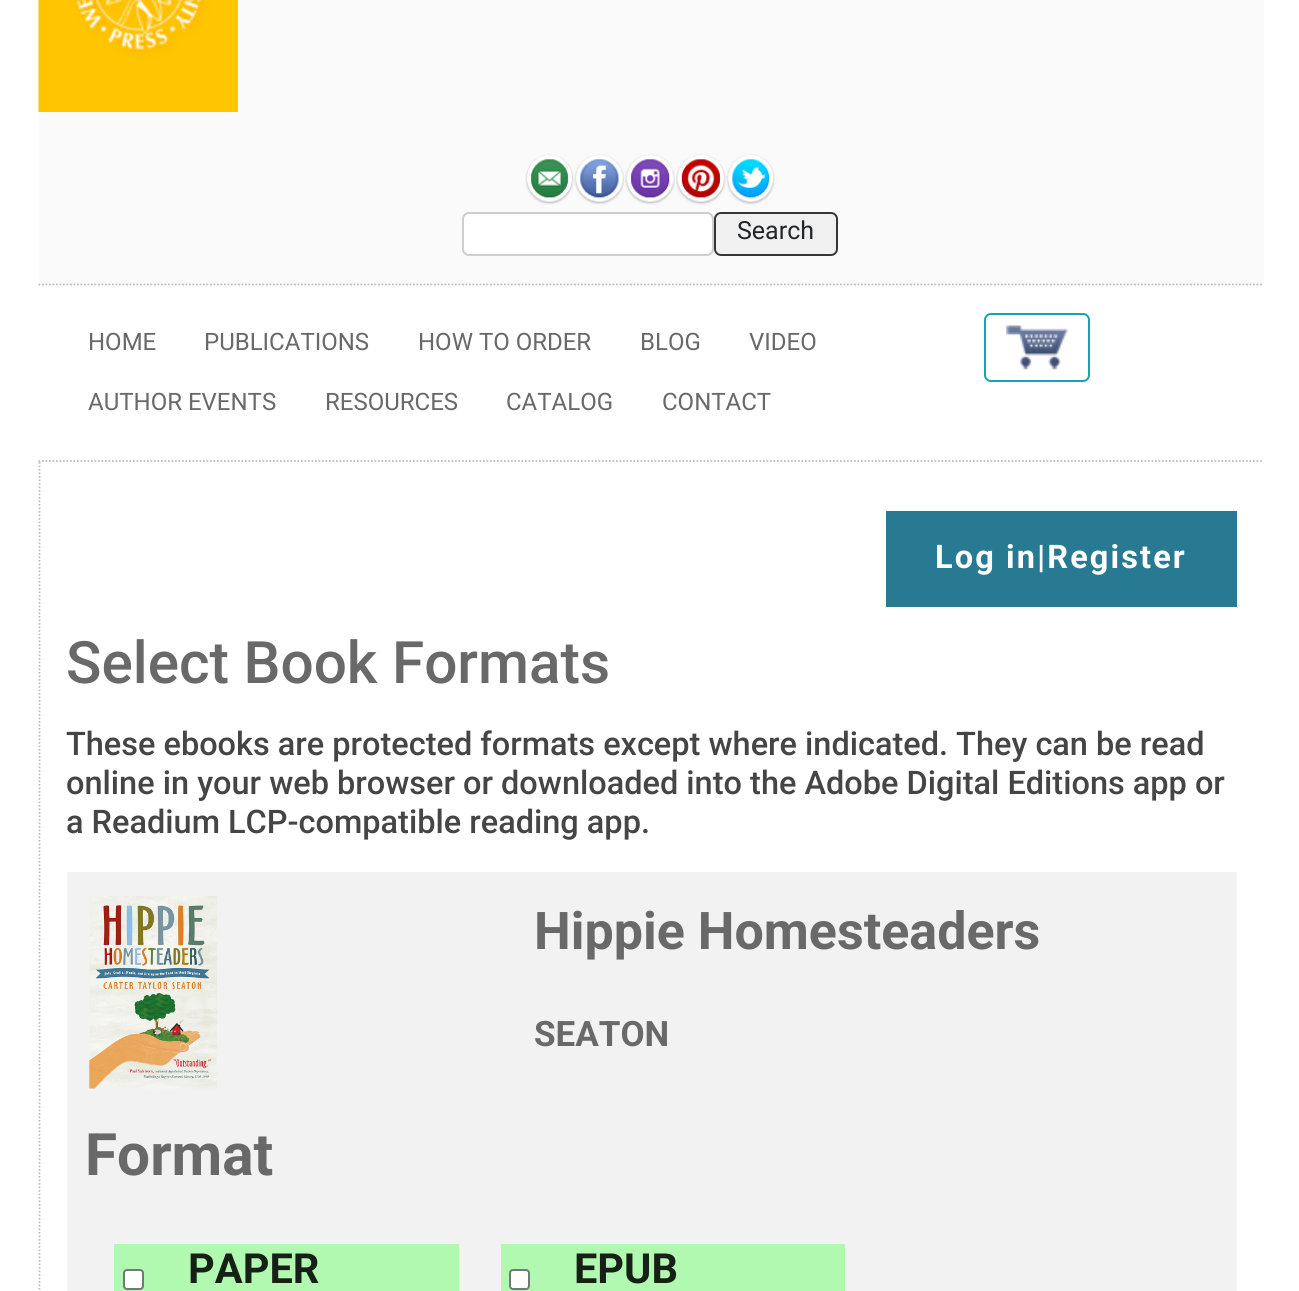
#include <cairo.h>
#include <math.h>
#include <stddef.h>


static void rgb(cairo_t *cr, int r, int g, int b)
{
	cairo_set_source_rgb(cr, r / 255.0, g / 255.0, b / 255.0);
}

static void face(cairo_t *cr, const char *family, double size, int italic, int bold)
{
	cairo_select_font_face(cr, family, italic ? CAIRO_FONT_SLANT_ITALIC : CAIRO_FONT_SLANT_NORMAL,
		bold ? CAIRO_FONT_WEIGHT_BOLD : CAIRO_FONT_WEIGHT_NORMAL);
	cairo_set_font_size(cr, size);
}

static void label(cairo_t *cr, double x, double y, const char *s)
{
	cairo_move_to(cr, x, y);
	cairo_show_text(cr, s);
}

static void tracked(cairo_t *cr, double x, double y, const char *s, double letter, double word)
{
	cairo_move_to(cr, x, y);
	while (*s) {
		char ch[5] = {0};
		int n = 0;
		do ch[n++] = *s++; while ((*s & 0xC0) == 0x80);
		cairo_show_text(cr, ch);
		cairo_rel_move_to(cr, letter + word * (*ch == ' '), 0);
	}
}

static void rect(cairo_t *cr, double x, double y, double w, double h)
{
	cairo_rectangle(cr, x, y, w, h);
	cairo_fill(cr);
}

static void rrect(cairo_t *cr, double x, double y, double w, double h, double r)
{
	cairo_new_sub_path(cr);
	cairo_arc(cr, x + w - r, y + h - r, r, 0, M_PI / 2);
	cairo_arc(cr, x + r, y + h - r, r, M_PI / 2, M_PI);
	cairo_arc(cr, x + r, y + r, r, M_PI, 1.5 * M_PI);
	cairo_arc(cr, x + w - r, y + r, r, 1.5 * M_PI, 2 * M_PI);
	cairo_close_path(cr);
}

static void image(cairo_t *cr, const char *path, double x, double y, double w, double h)
{
	cairo_surface_t *image = cairo_image_surface_create_from_png(path);
	cairo_save(cr);
	cairo_set_source_surface(cr, image, x, y);
	cairo_rectangle(cr, x, y, w, h);
	cairo_fill(cr);
	cairo_restore(cr);
	cairo_surface_destroy(image);
}

static void draw(cairo_t *cr) {
	rgb(cr, 255, 255, 255);
	cairo_paint(cr);
	rgb(cr, 250, 250, 250);
	rect(cr, 39, 0, 1225, 285);
	cairo_new_path(cr);
	cairo_move_to(cr, 38.5, 284.5);
	cairo_line_to(cr, 1263.5, 284.5);
	rgb(cr, 192, 192, 192);
	cairo_set_line_width(cr, 1.8);
	cairo_set_dash(cr, (double[]){1.75, 1.75}, 2, 0);
	cairo_stroke(cr);
	image(cr, "image0.png", 38, 0, 200, 112);
	image(cr, "image1.png", 525, 154, 49, 51);
	image(cr, "image2.png", 574, 154, 51, 51);
	image(cr, "image3.png", 625, 154, 50, 51);
	image(cr, "image4.png", 676, 154, 50, 51);
	image(cr, "image5.png", 726, 154, 49, 51);
	rgb(cr, 255, 255, 255);
	rrect(cr, 463, 213, 250, 42, 6);
	cairo_fill_preserve(cr);
	rgb(cr, 206, 206, 206);
	cairo_set_line_width(cr, 2);
	cairo_set_dash(cr, NULL, 0, 0);
	cairo_stroke(cr);
	rgb(cr, 240, 240, 240);
	rrect(cr, 715, 213, 122, 42, 6);
	cairo_fill_preserve(cr);
	rgb(cr, 58, 53, 53);
	cairo_stroke(cr);
	face(cr, "Roboto", 25, 0, 0);
	rgb(cr, 33, 37, 41);
	label(cr, 737, 239, "Search");
	face(cr, "Roboto", 24, 0, 0);
	rgb(cr, 105, 105, 105);
	label(cr, 88, 350, "HOME");
	label(cr, 204, 350, "PUBLICATIONS");
	label(cr, 418, 350, "HOW TO ORDER");
	label(cr, 640, 350, "BLOG");
	label(cr, 749, 350, "VIDEO");
	label(cr, 88, 410, "AUTHOR EVENTS");
	label(cr, 325, 410, "RESOURCES");
	label(cr, 506, 410, "CATALOG");
	label(cr, 662, 410, "CONTACT");
	rrect(cr, 985, 314, 104, 67, 6);
	rgb(cr, 23, 162, 184);
	cairo_stroke(cr);
	image(cr, "image6.png", 1006, 325, 62, 45);
	cairo_new_path(cr);
	cairo_move_to(cr, 38.5, 461);
	cairo_line_to(cr, 1263.5, 461);
	rgb(cr, 192, 192, 192);
	cairo_set_line_width(cr, 1.8);
	cairo_set_dash(cr, (double[]){1.75, 1.75}, 2, 0);
	cairo_stroke(cr);
	cairo_new_path(cr);
	cairo_move_to(cr, 39.5, 462);
	cairo_line_to(cr, 39.5, 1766);
	cairo_stroke(cr);
	rgb(cr, 40, 122, 147);
	rect(cr, 886, 511, 351, 96);
	face(cr, "Roboto", 32.5, 0, 1);
	rgb(cr, 255, 255, 255);
	tracked(cr, 935, 568, "Log in|Register", 2.1, 0);
	face(cr, "Roboto Medium", 58.5, 0, 0);
	rgb(cr, 105, 105, 105);
	label(cr, 66, 683, "Select Book Formats");
	face(cr, "Roboto Medium", 32.5, 0, 0);
	rgb(cr, 69, 69, 69);
	label(cr, 66, 755, "These ebooks are protected formats except where indicated. They can be read");
	label(cr, 66, 794, "online in your web browser or downloaded into the Adobe Digital Editions app or");
	label(cr, 66, 833, "a Readium LCP-compatible reading app.");
	rgb(cr, 242, 242, 242);
	rect(cr, 67, 872, 1170, 419);
	image(cr, "image7.png", 89, 896, 128, 193);
	face(cr, "Roboto", 52, 0, 1);
	rgb(cr, 105, 105, 105);
	label(cr, 534, 949, "Hippie Homesteaders");
	face(cr, "Roboto", 35, 0, 1);
	label(cr, 534, 1046, "SEATON");
	face(cr, "Roboto", 58.5, 0, 1);
	label(cr, 85, 1175, "Format");
	rgb(cr, 177, 249, 177);
	rect(cr, 114, 1244, 345, 47);
	rgb(cr, 255, 255, 255);
	rrect(cr, 124, 1270, 19, 19, 3);
	cairo_fill_preserve(cr);
	rgb(cr, 118, 118, 118);
	cairo_set_line_width(cr, 2);
	cairo_set_dash(cr, NULL, 0, 0);
	cairo_stroke(cr);
	face(cr, "Roboto", 41.5, 0, 1);
	rgb(cr, 23, 32, 23);
	label(cr, 188, 1283, "PAPER");
	rgb(cr, 177, 249, 177);
	rect(cr, 501, 1244, 344, 47);
	rgb(cr, 255, 255, 255);
	rrect(cr, 510, 1270, 19, 19, 3);
	cairo_fill_preserve(cr);
	rgb(cr, 118, 118, 118);
	cairo_stroke(cr);
	rgb(cr, 23, 32, 23);
	label(cr, 574, 1283, "EPUB");
}

int main(void) {
	cairo_surface_t *surface = cairo_image_surface_create(CAIRO_FORMAT_RGB24, 1299, 1291);
	cairo_t *cr = cairo_create(surface);
	cairo_font_options_t *options = cairo_font_options_create();
	cairo_font_options_set_hint_metrics(options, CAIRO_HINT_METRICS_OFF);
	cairo_font_options_set_hint_style(options, CAIRO_HINT_STYLE_NONE);
	cairo_set_font_options(cr, options);
	cairo_set_miter_limit(cr, 4);
	draw(cr);
	cairo_surface_write_to_png(surface, "render.png");
	cairo_font_options_destroy(options);
	cairo_destroy(cr);
	cairo_surface_destroy(surface);
	return 0;
}
